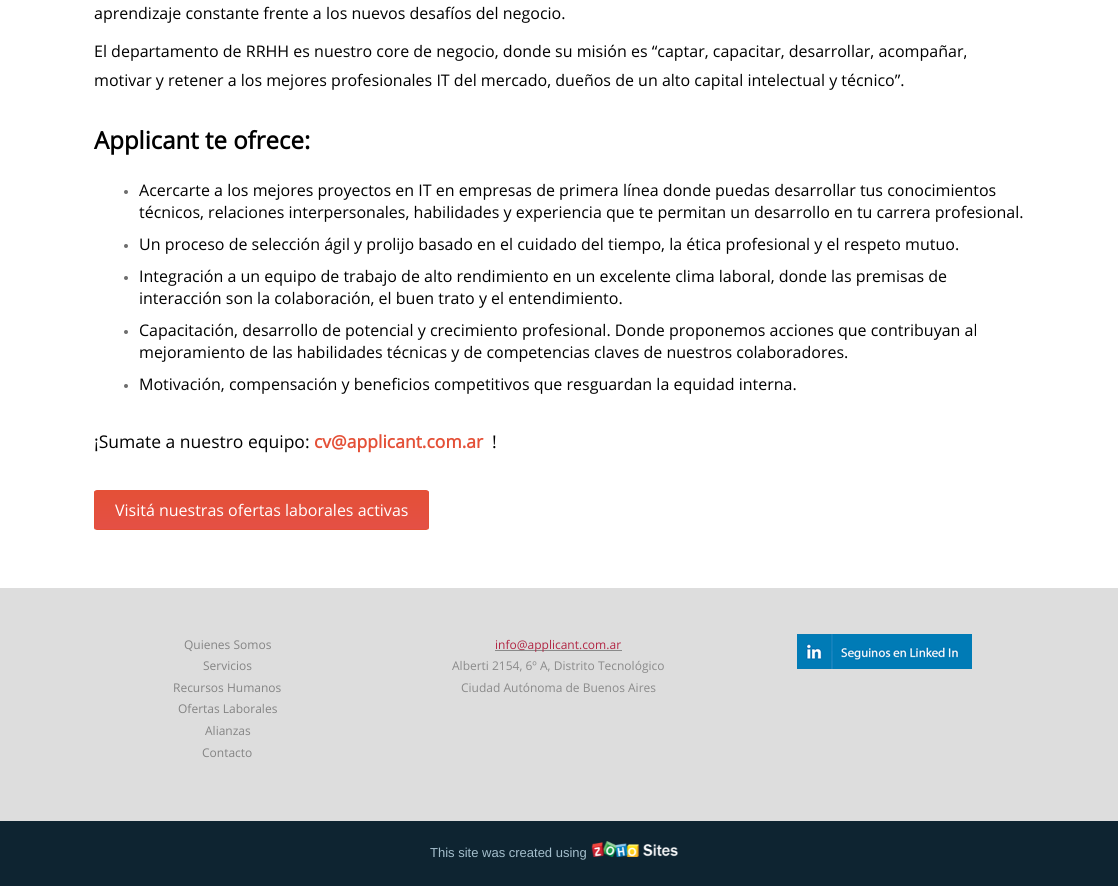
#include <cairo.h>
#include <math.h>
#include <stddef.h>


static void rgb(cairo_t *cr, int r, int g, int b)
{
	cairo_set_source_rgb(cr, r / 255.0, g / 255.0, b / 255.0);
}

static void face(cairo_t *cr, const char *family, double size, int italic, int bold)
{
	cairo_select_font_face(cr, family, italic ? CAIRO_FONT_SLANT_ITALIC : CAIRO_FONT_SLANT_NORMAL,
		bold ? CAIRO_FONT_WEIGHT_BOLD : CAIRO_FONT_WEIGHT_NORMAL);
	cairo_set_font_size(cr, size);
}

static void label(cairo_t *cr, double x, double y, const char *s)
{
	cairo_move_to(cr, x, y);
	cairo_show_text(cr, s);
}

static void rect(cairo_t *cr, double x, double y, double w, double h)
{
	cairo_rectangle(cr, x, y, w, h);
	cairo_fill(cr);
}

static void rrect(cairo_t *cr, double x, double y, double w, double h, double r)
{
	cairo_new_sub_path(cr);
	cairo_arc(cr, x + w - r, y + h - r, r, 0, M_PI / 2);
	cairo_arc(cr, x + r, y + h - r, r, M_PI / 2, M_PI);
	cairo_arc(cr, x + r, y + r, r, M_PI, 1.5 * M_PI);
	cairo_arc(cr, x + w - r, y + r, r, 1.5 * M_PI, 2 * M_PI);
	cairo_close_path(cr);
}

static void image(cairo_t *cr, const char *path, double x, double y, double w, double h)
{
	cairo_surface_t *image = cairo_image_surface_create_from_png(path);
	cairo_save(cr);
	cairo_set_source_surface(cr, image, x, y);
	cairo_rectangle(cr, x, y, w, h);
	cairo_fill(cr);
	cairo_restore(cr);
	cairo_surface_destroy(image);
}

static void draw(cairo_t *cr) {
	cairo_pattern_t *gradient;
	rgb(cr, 255, 255, 255);
	cairo_paint(cr);
	face(cr, "Open Sans", 16, 0, 0);
	rgb(cr, 0, 0, 0);
	label(cr, 94, 19, "aprendizaje constante frente a los nuevos desafíos del negocio.");
	label(cr, 94, 57, "El departamento de RRHH es nuestro core de negocio, donde su misión es “captar, capacitar, desarrollar, acompañar,");
	label(cr, 94, 86, "motivar y retener a los mejores profesionales IT del mercado, dueños de un alto capital intelectual y técnico”.");
	face(cr, "Open Sans", 24, 0, 1);
	label(cr, 94, 149, "Applicant te ofrece:");
	rgb(cr, 110, 110, 110);
	cairo_new_path(cr);
	cairo_arc(cr, 126, 192, 2, 0, 2 * M_PI);
	cairo_fill(cr);
	face(cr, "Open Sans", 16, 0, 0);
	rgb(cr, 0, 0, 0);
	label(cr, 139, 196, "Acercarte a los mejores proyectos en IT en empresas de primera línea donde puedas desarrollar tus conocimientos");
	label(cr, 139, 218, "técnicos, relaciones interpersonales, habilidades y experiencia que te permitan un desarrollo en tu carrera profesional.");
	rgb(cr, 110, 110, 110);
	cairo_new_path(cr);
	cairo_arc(cr, 126, 246, 2, 0, 2 * M_PI);
	cairo_fill(cr);
	rgb(cr, 0, 0, 0);
	label(cr, 139, 250, "Un proceso de selección ágil y prolijo basado en el cuidado del tiempo, la ética profesional y el respeto mutuo.");
	rgb(cr, 110, 110, 110);
	cairo_new_path(cr);
	cairo_arc(cr, 126, 278, 2, 0, 2 * M_PI);
	cairo_fill(cr);
	rgb(cr, 0, 0, 0);
	label(cr, 139, 282, "Integración a un equipo de trabajo de alto rendimiento en un excelente clima laboral, donde las premisas de");
	label(cr, 139, 304, "interacción son la colaboración, el buen trato y el entendimiento.");
	rgb(cr, 110, 110, 110);
	cairo_new_path(cr);
	cairo_arc(cr, 126, 332, 2, 0, 2 * M_PI);
	cairo_fill(cr);
	rgb(cr, 0, 0, 0);
	label(cr, 139, 336, "Capacitación, desarrollo de potencial y crecimiento profesional. Donde proponemos acciones que contribuyan al");
	label(cr, 139, 358, "mejoramiento de las habilidades técnicas y de competencias claves de nuestros colaboradores.");
	rgb(cr, 110, 110, 110);
	cairo_new_path(cr);
	cairo_arc(cr, 126, 386, 2, 0, 2 * M_PI);
	cairo_fill(cr);
	rgb(cr, 0, 0, 0);
	label(cr, 139, 390, "Motivación, compensación y beneficios competitivos que resguardan la equidad interna.");
	face(cr, "Open Sans", 17.5, 0, 0);
	label(cr, 94, 448, "¡Sumate a nuestro equipo:");
	face(cr, "Open Sans", 17.5, 0, 1);
	rgb(cr, 228, 80, 55);
	label(cr, 314, 448, "cv@applicant.com.ar");
	face(cr, "Open Sans", 17.5, 0, 0);
	rgb(cr, 0, 0, 0);
	label(cr, 492, 448, "!");
	cairo_save(cr);
	cairo_rectangle(cr, 94, 490, 930, 40);
	cairo_clip(cr);
	rgb(cr, 235, 235, 235);
	cairo_new_path(cr);
	cairo_move_to(cr, 94, 527);
	cairo_line_to(cr, 94, 529);
	cairo_curve_to(cr, 94, 531, 95, 532, 97, 532);
	cairo_line_to(cr, 426, 532);
	cairo_curve_to(cr, 428, 532, 429, 531, 429, 529);
	cairo_line_to(cr, 429, 527);
	cairo_curve_to(cr, 429, 529, 428, 530, 426, 530);
	cairo_line_to(cr, 97, 530);
	cairo_curve_to(cr, 95, 530, 94, 529, 94, 527);
	cairo_close_path(cr);
	cairo_fill(cr);
	cairo_restore(cr);
	cairo_save(cr);
	rrect(cr, 94, 490, 335, 40, 3);
	cairo_clip(cr);
	gradient = cairo_pattern_create_linear(95, 491, 95, 529);
	cairo_pattern_add_color_stop_rgba(gradient, 0, 0.894, 0.314, 0.216, 1);
	cairo_pattern_add_color_stop_rgba(gradient, 1, 0.894, 0.314, 0.271, 1);
	cairo_set_source(cr, gradient);
	cairo_pattern_destroy(gradient);
	rect(cr, 94, 491, 335, 38);
	cairo_restore(cr);
	rrect(cr, 94.5, 490.5, 334, 39, 2.5);
	rgb(cr, 228, 80, 55);
	cairo_set_line_width(cr, 1);
	cairo_stroke(cr);
	face(cr, "Open Sans", 16, 0, 0);
	rgb(cr, 255, 255, 255);
	label(cr, 115, 516, "Visitá nuestras ofertas laborales activas");
	rgb(cr, 221, 221, 221);
	rect(cr, 0, 588, 1118, 233);
	face(cr, "Open Sans", 12, 0, 0);
	rgb(cr, 132, 132, 132);
	label(cr, 184, 649, "Quienes Somos");
	label(cr, 203, 670, "Servicios");
	label(cr, 173, 692, "Recursos Humanos");
	label(cr, 178, 713, "Ofertas Laborales");
	label(cr, 205, 735, "Alianzas");
	label(cr, 202, 757, "Contacto");
	rgb(cr, 138, 138, 138);
	rect(cr, 495, 650, 127, 1);
	rgb(cr, 177, 37, 67);
	label(cr, 495, 649, "info@applicant.com.ar");
	rgb(cr, 138, 138, 138);
	label(cr, 452, 670, "Alberti 2154, 6º A, Distrito Tecnológico");
	label(cr, 461, 692, "Ciudad Autónoma de Buenos Aires");
	image(cr, "image0.png", 797, 634, 175, 35);
	rgb(cr, 14, 36, 49);
	rect(cr, 0, 821, 1118, 65);
	face(cr, "Liberation Sans", 13, 0, 0);
	rgb(cr, 164, 190, 204);
	label(cr, 430, 857, "This site was created using");
	image(cr, "image1.png", 591, 841, 88, 16);
}

int main(void) {
	cairo_surface_t *surface = cairo_image_surface_create(CAIRO_FORMAT_RGB24, 1118, 886);
	cairo_t *cr = cairo_create(surface);
	cairo_font_options_t *options = cairo_font_options_create();
	cairo_font_options_set_hint_metrics(options, CAIRO_HINT_METRICS_OFF);
	cairo_font_options_set_hint_style(options, CAIRO_HINT_STYLE_NONE);
	cairo_set_font_options(cr, options);
	cairo_set_miter_limit(cr, 4);
	draw(cr);
	cairo_surface_write_to_png(surface, "render.png");
	cairo_font_options_destroy(options);
	cairo_destroy(cr);
	cairo_surface_destroy(surface);
	return 0;
}
